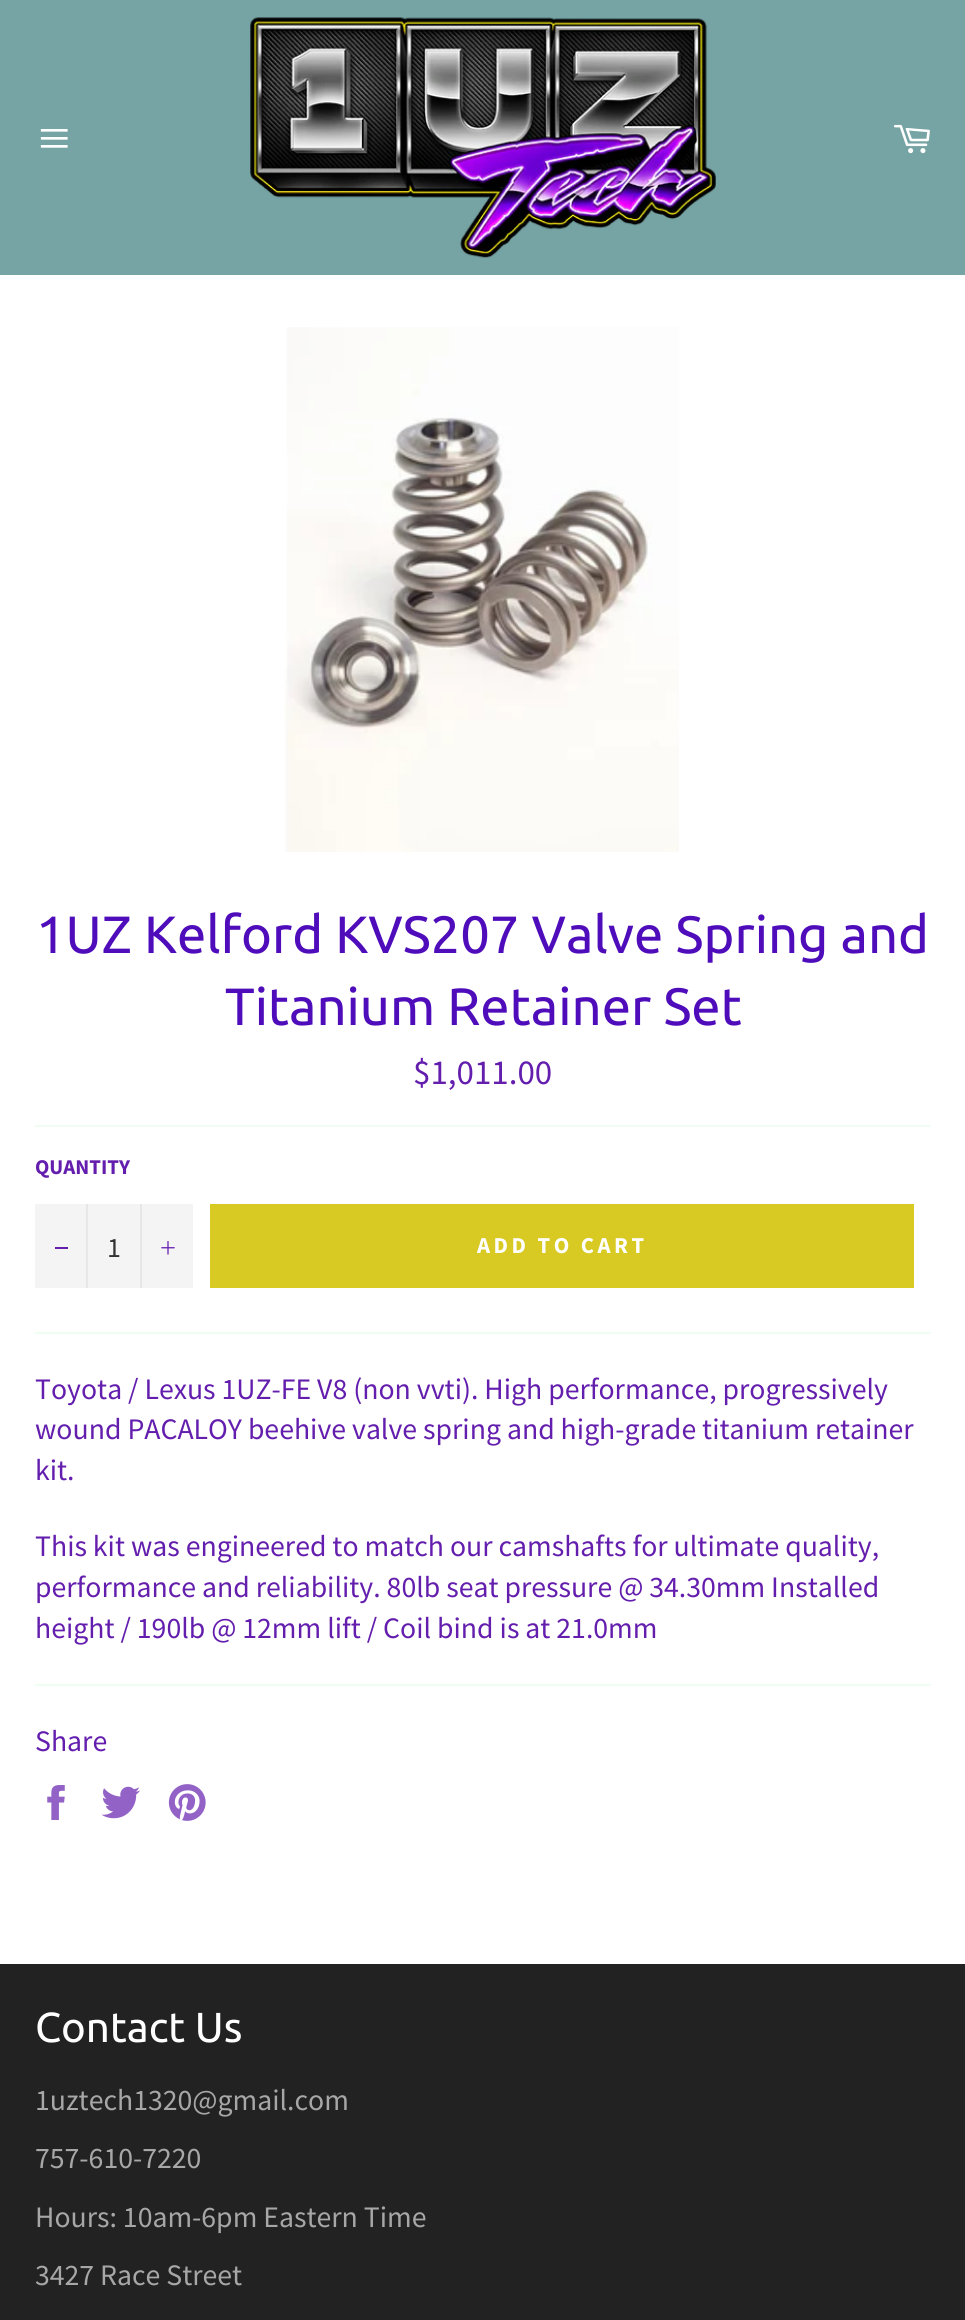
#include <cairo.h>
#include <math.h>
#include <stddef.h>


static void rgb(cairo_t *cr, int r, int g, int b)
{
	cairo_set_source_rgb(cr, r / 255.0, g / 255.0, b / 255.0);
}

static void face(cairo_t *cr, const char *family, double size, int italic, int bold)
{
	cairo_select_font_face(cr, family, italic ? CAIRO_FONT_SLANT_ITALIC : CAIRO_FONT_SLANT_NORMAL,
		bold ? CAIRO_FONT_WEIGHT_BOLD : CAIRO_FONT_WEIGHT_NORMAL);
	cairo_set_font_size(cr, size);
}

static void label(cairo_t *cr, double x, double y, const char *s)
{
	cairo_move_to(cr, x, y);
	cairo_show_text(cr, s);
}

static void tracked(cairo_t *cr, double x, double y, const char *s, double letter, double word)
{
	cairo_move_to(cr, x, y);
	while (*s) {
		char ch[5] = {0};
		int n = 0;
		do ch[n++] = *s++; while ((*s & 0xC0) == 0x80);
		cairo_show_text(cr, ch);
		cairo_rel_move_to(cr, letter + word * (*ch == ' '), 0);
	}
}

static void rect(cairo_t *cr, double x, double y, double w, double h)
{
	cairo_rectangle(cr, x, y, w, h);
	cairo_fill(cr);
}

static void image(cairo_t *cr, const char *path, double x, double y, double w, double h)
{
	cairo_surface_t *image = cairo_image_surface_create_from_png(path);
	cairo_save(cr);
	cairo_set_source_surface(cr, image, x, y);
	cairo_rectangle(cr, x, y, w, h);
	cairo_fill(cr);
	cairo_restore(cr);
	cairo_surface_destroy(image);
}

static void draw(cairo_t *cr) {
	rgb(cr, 118, 163, 163);
	cairo_paint(cr);
	image(cr, "image0.png", 40, 129, 28, 19);
	image(cr, "image1.png", 250, 17, 466, 241);
	image(cr, "image2.png", 894, 124, 36, 30);
	rgb(cr, 255, 255, 255);
	rect(cr, 0, 275, 965, 1689);
	image(cr, "image3.png", 284, 327, 395, 525);
	face(cr, "Ubuntu", 52.5, 0, 0);
	rgb(cr, 79, 12, 187);
	label(cr, 36, 953, "1UZ Kelford KVS207 Valve Spring and");
	label(cr, 225, 1025, "Titanium Retainer Set");
	face(cr, "Source Sans Pro", 35, 0, 0);
	rgb(cr, 100, 30, 174);
	label(cr, 413, 1084, "$1,011.00");
	rgb(cr, 240, 253, 242);
	rect(cr, 35, 1125, 896, 2);
	face(cr, "Source Sans Pro", 21, 0, 1);
	rgb(cr, 100, 30, 174);
	label(cr, 35, 1174, "QUANTITY");
	rgb(cr, 244, 244, 244);
	rect(cr, 35, 1204, 158, 84);
	rgb(cr, 231, 231, 231);
	rect(cr, 86, 1204, 2, 84);
	rgb(cr, 100, 30, 174);
	rect(cr, 55, 1247, 13, 2);
	face(cr, "Source Sans Pro", 28, 0, 0);
	rgb(cr, 51, 51, 51);
	label(cr, 107, 1257, "1");
	rgb(cr, 231, 231, 231);
	rect(cr, 140, 1204, 2, 84);
	image(cr, "image4.png", 161, 1241, 14, 14);
	rgb(cr, 216, 202, 35);
	rect(cr, 210, 1204, 704, 84);
	face(cr, "Source Sans Pro", 22.75, 0, 1);
	rgb(cr, 255, 255, 255);
	tracked(cr, 477, 1253, "ADD TO CART", 3.5, 0);
	rgb(cr, 240, 253, 242);
	rect(cr, 35, 1332, 896, 2);
	face(cr, "Source Sans Pro", 29.75, 0, 0);
	rgb(cr, 100, 30, 174);
	label(cr, 35, 1399, "Toyota / Lexus 1UZ-FE V8 (non vvti). High performance, progressively");
	label(cr, 35, 1439, "wound PACALOY beehive valve spring and high-grade titanium retainer");
	label(cr, 35, 1480, "kit.");
	label(cr, 35, 1556, "This kit was engineered to match our camshafts for ultimate quality,");
	label(cr, 35, 1597, "performance and reliability. 80lb seat pressure @ 34.30mm Installed");
	label(cr, 35, 1638, "height / 190lb @ 12mm lift / Coil bind is at 21.0mm");
	rgb(cr, 240, 253, 242);
	rect(cr, 35, 1684, 896, 2);
	rgb(cr, 100, 30, 174);
	label(cr, 35, 1751, "Share");
	image(cr, "image5.png", 47, 1785, 18, 35);
	image(cr, "image6.png", 101, 1786, 39, 33);
	image(cr, "image7.png", 168, 1784, 38, 37);
	rgb(cr, 34, 34, 34);
	rect(cr, 0, 1964, 965, 356);
	face(cr, "Ubuntu", 42, 0, 0);
	rgb(cr, 255, 255, 255);
	label(cr, 35, 2042, "Contact Us");
	face(cr, "Source Sans Pro", 29.75, 0, 0);
	rgb(cr, 167, 167, 167);
	label(cr, 35, 2110, "1uztech1320@gmail.com");
	label(cr, 35, 2168, "757-610-7220");
	label(cr, 35, 2227, "Hours: 10am-6pm Eastern Time");
	label(cr, 35, 2285, "3427 Race Street");
}

int main(void) {
	cairo_surface_t *surface = cairo_image_surface_create(CAIRO_FORMAT_RGB24, 965, 2320);
	cairo_t *cr = cairo_create(surface);
	cairo_font_options_t *options = cairo_font_options_create();
	cairo_font_options_set_hint_metrics(options, CAIRO_HINT_METRICS_OFF);
	cairo_font_options_set_hint_style(options, CAIRO_HINT_STYLE_NONE);
	cairo_set_font_options(cr, options);
	cairo_set_miter_limit(cr, 4);
	draw(cr);
	cairo_surface_write_to_png(surface, "render.png");
	cairo_font_options_destroy(options);
	cairo_destroy(cr);
	cairo_surface_destroy(surface);
	return 0;
}
